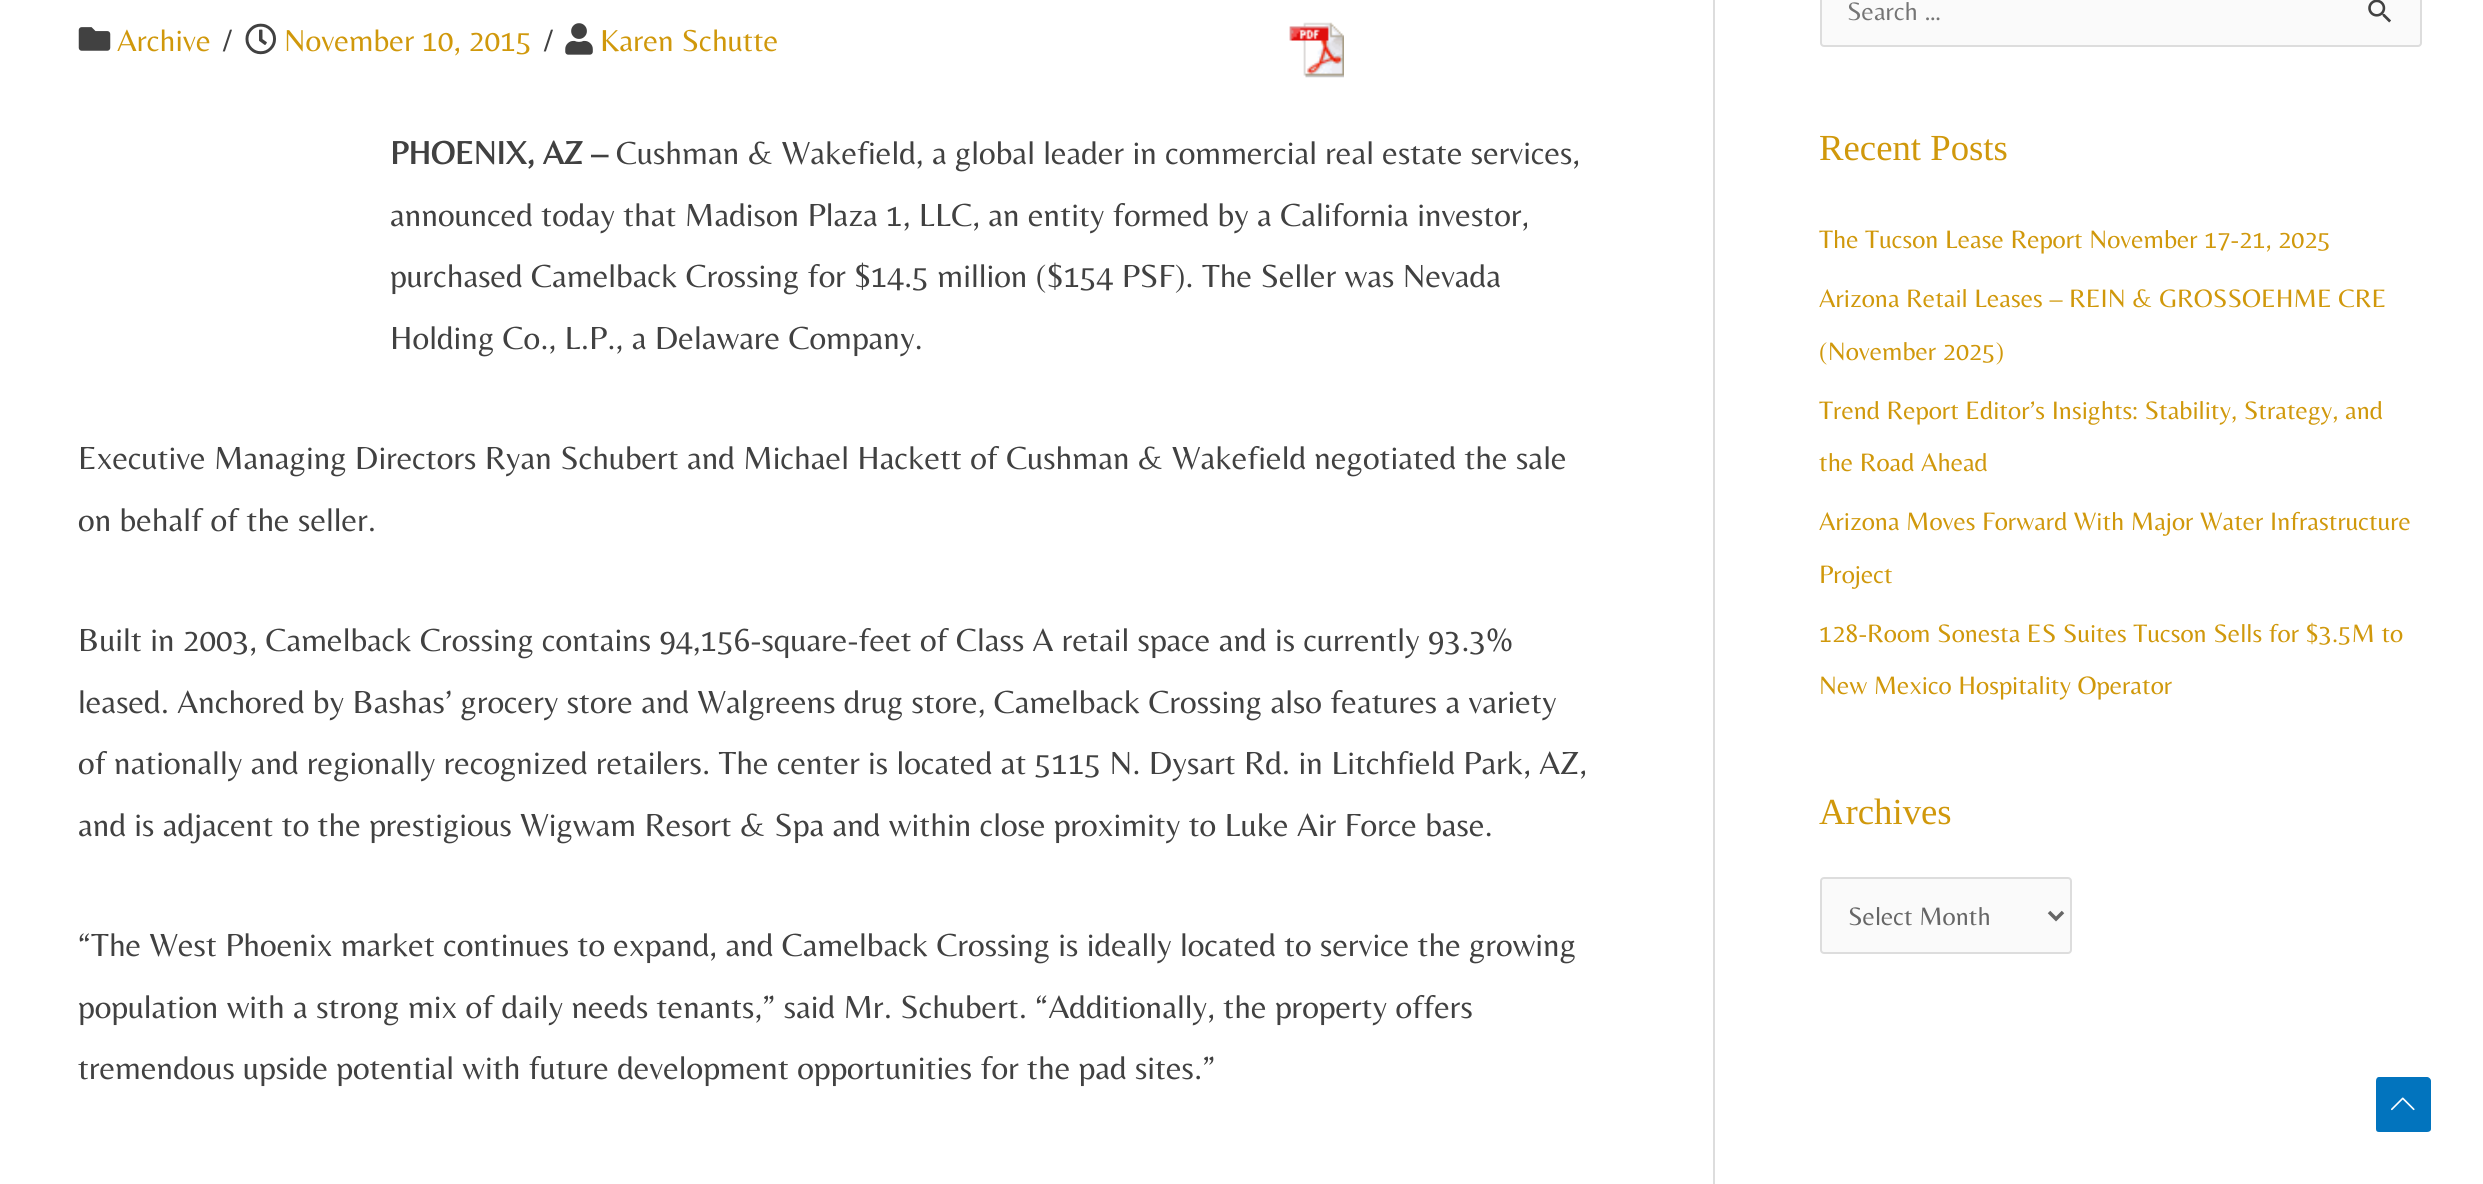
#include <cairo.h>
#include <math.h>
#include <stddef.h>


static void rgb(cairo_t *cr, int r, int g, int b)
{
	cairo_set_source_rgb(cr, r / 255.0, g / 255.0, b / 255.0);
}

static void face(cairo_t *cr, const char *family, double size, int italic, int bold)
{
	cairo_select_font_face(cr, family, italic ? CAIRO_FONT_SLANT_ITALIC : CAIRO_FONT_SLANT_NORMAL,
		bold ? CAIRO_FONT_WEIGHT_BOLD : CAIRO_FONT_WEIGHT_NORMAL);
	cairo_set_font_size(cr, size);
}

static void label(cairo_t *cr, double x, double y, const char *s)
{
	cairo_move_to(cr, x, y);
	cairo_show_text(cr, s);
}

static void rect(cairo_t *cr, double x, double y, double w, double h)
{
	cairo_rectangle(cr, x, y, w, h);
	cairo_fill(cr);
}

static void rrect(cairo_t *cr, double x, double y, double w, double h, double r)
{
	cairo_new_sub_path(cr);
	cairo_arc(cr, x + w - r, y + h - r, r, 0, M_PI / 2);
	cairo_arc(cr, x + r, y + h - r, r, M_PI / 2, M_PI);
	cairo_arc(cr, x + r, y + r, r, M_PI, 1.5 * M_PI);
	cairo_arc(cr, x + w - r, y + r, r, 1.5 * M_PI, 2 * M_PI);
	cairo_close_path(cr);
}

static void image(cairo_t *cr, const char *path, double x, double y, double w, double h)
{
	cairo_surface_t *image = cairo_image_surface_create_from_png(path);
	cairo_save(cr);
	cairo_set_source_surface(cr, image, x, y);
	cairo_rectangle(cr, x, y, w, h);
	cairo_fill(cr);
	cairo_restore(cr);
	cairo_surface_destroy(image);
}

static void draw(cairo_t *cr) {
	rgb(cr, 255, 255, 255);
	cairo_paint(cr);
	rgb(cr, 221, 221, 221);
	rect(cr, 1713, 0, 2, 1184);
	image(cr, "image0.png", 78, 27, 33, 24);
	face(cr, "Belleza", 31.5, 0, 0);
	rgb(cr, 208, 152, 11);
	label(cr, 117, 51, "Archive");
	rgb(cr, 65, 65, 65);
	label(cr, 223, 51, "/");
	image(cr, "image1.png", 245, 23, 31, 32);
	rgb(cr, 208, 152, 11);
	label(cr, 284, 51, "November 10, 2015");
	rgb(cr, 65, 65, 65);
	label(cr, 544, 51, "/");
	image(cr, "image2.png", 565, 23, 28, 32);
	rgb(cr, 208, 152, 11);
	label(cr, 600, 51, "Karen Schutte");
	image(cr, "image3.png", 1289, 22, 55, 56);
	face(cr, "Belleza", 33.25, 0, 1);
	rgb(cr, 65, 65, 65);
	label(cr, 390, 164, "PHOENIX, AZ –");
	face(cr, "Belleza", 33.25, 0, 0);
	label(cr, 616, 164, "Cushman & Wakefield, a global leader in commercial real estate services,");
	label(cr, 390, 226, "announced today that Madison Plaza 1, LLC, an entity formed by a California investor,");
	label(cr, 390, 287, "purchased Camelback Crossing for $14.5 million ($154 PSF). The Seller was Nevada");
	label(cr, 390, 349, "Holding Co., L.P., a Delaware Company.");
	label(cr, 78, 469, "Executive Managing Directors Ryan Schubert and Michael Hackett of Cushman & Wakefield negotiated the sale");
	label(cr, 78, 531, "on behalf of the seller.");
	label(cr, 78, 651, "Built in 2003, Camelback Crossing contains 94,156-square-feet of Class A retail space and is currently 93.3%");
	label(cr, 78, 713, "leased. Anchored by Bashas’ grocery store and Walgreens drug store, Camelback Crossing also features a variety");
	label(cr, 78, 774, "of nationally and regionally recognized retailers. The center is located at 5115 N. Dysart Rd. in Litchfield Park, AZ,");
	label(cr, 78, 836, "and is adjacent to the prestigious Wigwam Resort & Spa and within close proximity to Luke Air Force base.");
	label(cr, 78, 956, "“The West Phoenix market continues to expand, and Camelback Crossing is ideally located to service the growing");
	label(cr, 78, 1018, "population with a strong mix of daily needs tenants,” said Mr. Schubert. “Additionally, the property offers");
	label(cr, 78, 1079, "tremendous upside potential with future development opportunities for the pad sites.”");
	rgb(cr, 250, 250, 250);
	rrect(cr, 1821, -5, 600, 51, 3);
	cairo_fill_preserve(cr);
	rgb(cr, 221, 221, 221);
	cairo_stroke(cr);
	face(cr, "Belleza", 26.25, 0, 0);
	rgb(cr, 117, 117, 117);
	label(cr, 1847, 20, "Search …");
	image(cr, "image4.png", 2368, 0, 23, 23);
	face(cr, "Liberation Serif", 36.75, 0, 0);
	rgb(cr, 208, 152, 11);
	label(cr, 1819, 160, "Recent Posts");
	face(cr, "Belleza", 26.25, 0, 0);
	label(cr, 1819, 248, "The Tucson Lease Report November 17-21, 2025");
	label(cr, 1819, 307, "Arizona Retail Leases – REIN & GROSSOEHME CRE");
	label(cr, 1819, 360, "(November 2025)");
	label(cr, 1819, 419, "Trend Report Editor’s Insights: Stability, Strategy, and");
	label(cr, 1819, 471, "the Road Ahead");
	label(cr, 1819, 530, "Arizona Moves Forward With Major Water Infrastructure");
	label(cr, 1819, 583, "Project");
	label(cr, 1819, 642, "128-Room Sonesta ES Suites Tucson Sells for $3.5M to");
	label(cr, 1819, 694, "New Mexico Hospitality Operator");
	face(cr, "Liberation Serif", 36.75, 0, 0);
	label(cr, 1819, 824, "Archives");
	rgb(cr, 250, 250, 250);
	rrect(cr, 1821, 878, 250, 75, 3);
	cairo_fill_preserve(cr);
	rgb(cr, 221, 221, 221);
	cairo_stroke(cr);
	cairo_new_path(cr);
	cairo_move_to(cr, 2049, 912);
	cairo_line_to(cr, 2056, 919);
	cairo_line_to(cr, 2063, 912);
	rgb(cr, 102, 102, 102);
	cairo_set_line_width(cr, 3.5);
	cairo_stroke(cr);
	face(cr, "Belleza", 26.25, 0, 0);
	label(cr, 1848, 925, "Select Month");
	rgb(cr, 2, 116, 190);
	cairo_new_path(cr);
	cairo_move_to(cr, 2427, 1132);
	cairo_line_to(cr, 2379, 1132);
	cairo_curve_to(cr, 2377, 1132, 2376, 1131, 2376, 1129);
	cairo_line_to(cr, 2376, 1081);
	cairo_curve_to(cr, 2376, 1079, 2377, 1077, 2379, 1077);
	cairo_line_to(cr, 2427, 1077);
	cairo_curve_to(cr, 2429, 1077, 2431, 1079, 2431, 1081);
	cairo_line_to(cr, 2431, 1129);
	cairo_curve_to(cr, 2431, 1131, 2429, 1132, 2427, 1132);
	cairo_close_path(cr);
	cairo_fill(cr);
	image(cr, "image5.png", 2391, 1097, 24, 14);
}

int main(void) {
	cairo_surface_t *surface = cairo_image_surface_create(CAIRO_FORMAT_RGB24, 2483, 1184);
	cairo_t *cr = cairo_create(surface);
	cairo_font_options_t *options = cairo_font_options_create();
	cairo_font_options_set_hint_metrics(options, CAIRO_HINT_METRICS_OFF);
	cairo_font_options_set_hint_style(options, CAIRO_HINT_STYLE_NONE);
	cairo_set_font_options(cr, options);
	cairo_set_miter_limit(cr, 4);
	draw(cr);
	cairo_surface_write_to_png(surface, "render.png");
	cairo_font_options_destroy(options);
	cairo_destroy(cr);
	cairo_surface_destroy(surface);
	return 0;
}
